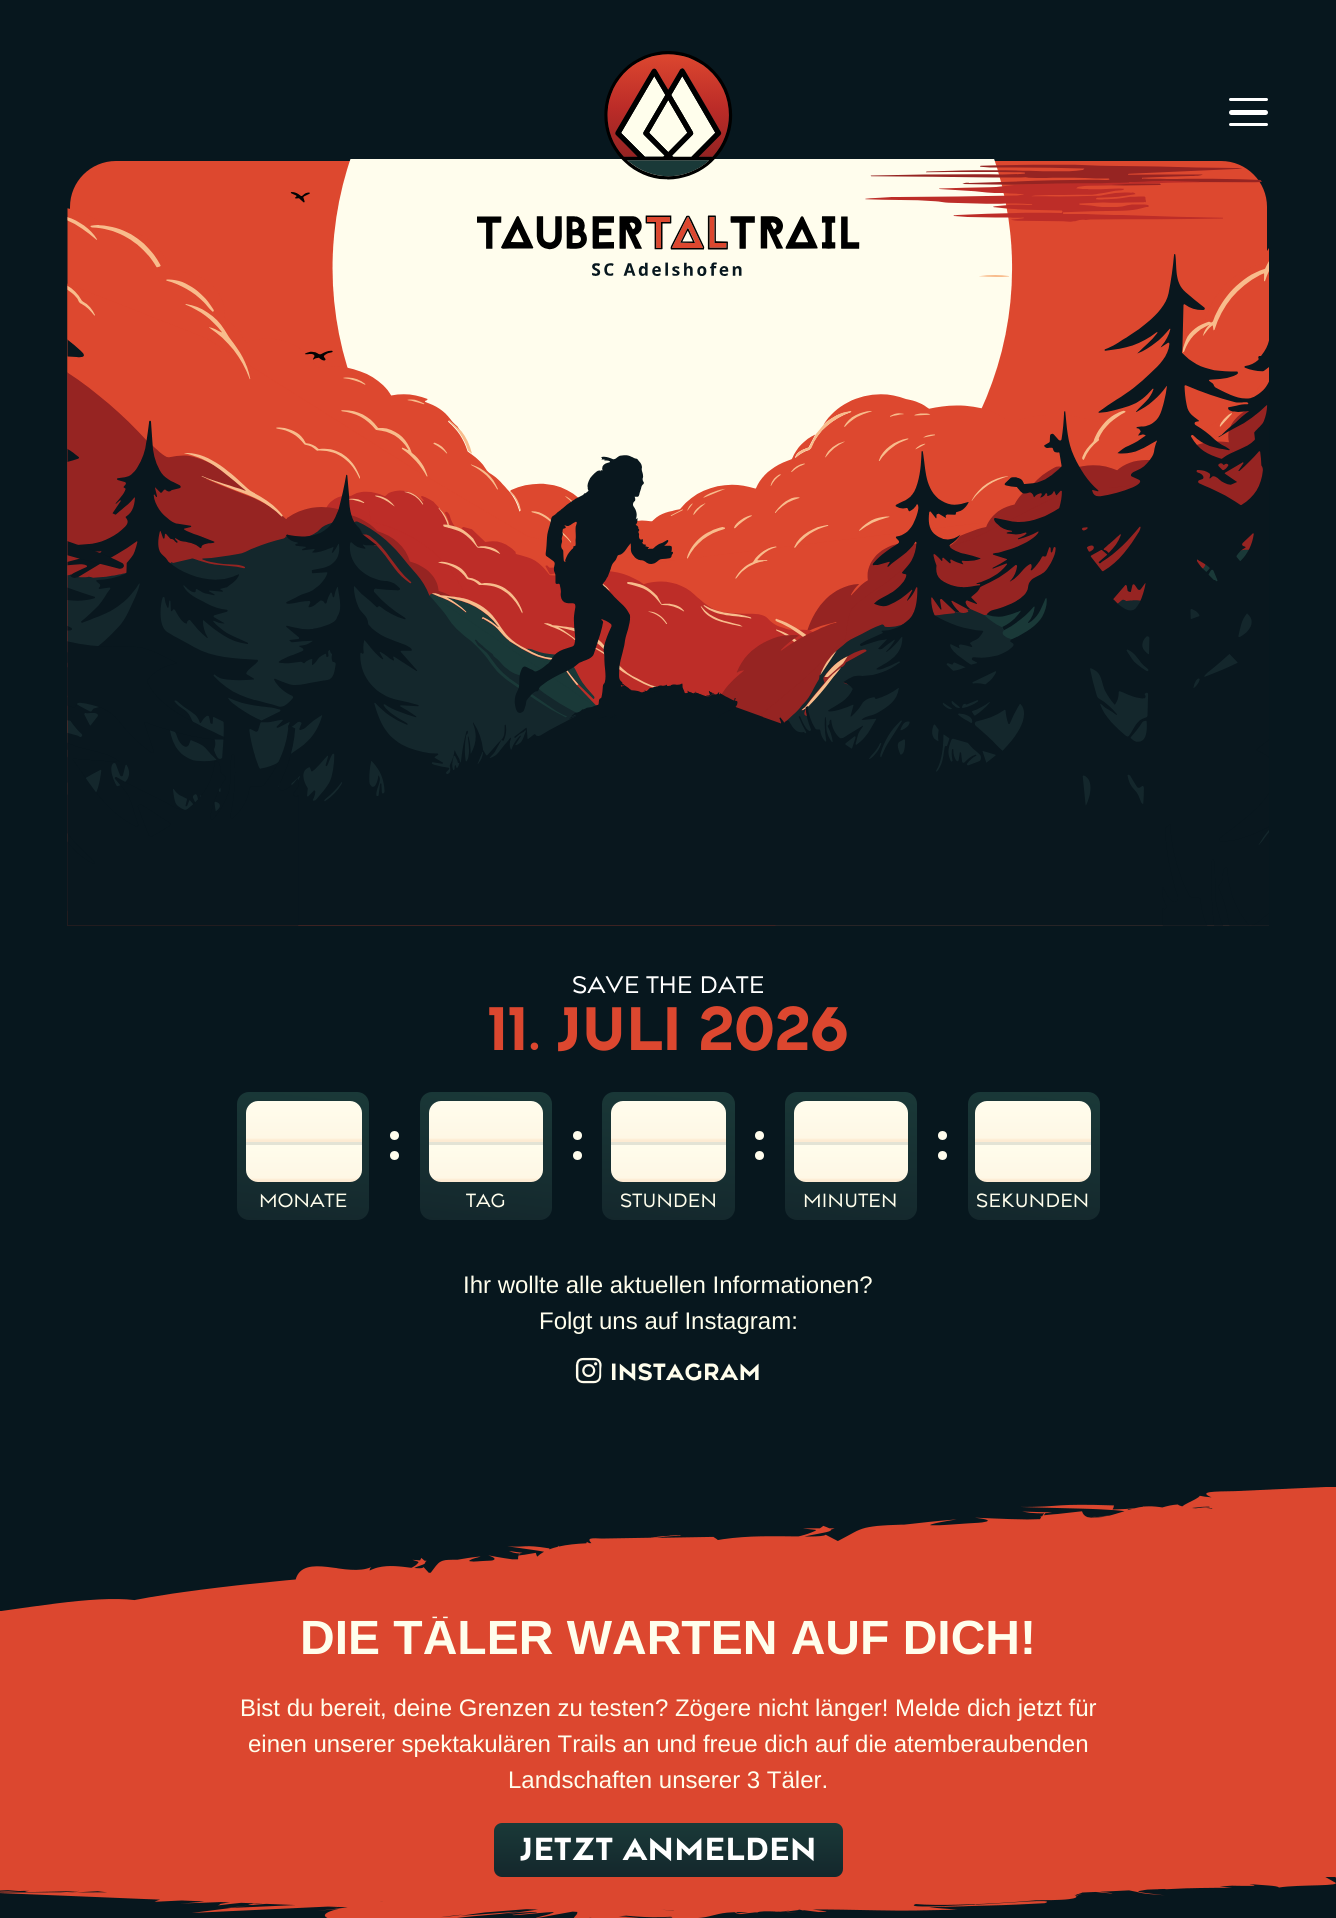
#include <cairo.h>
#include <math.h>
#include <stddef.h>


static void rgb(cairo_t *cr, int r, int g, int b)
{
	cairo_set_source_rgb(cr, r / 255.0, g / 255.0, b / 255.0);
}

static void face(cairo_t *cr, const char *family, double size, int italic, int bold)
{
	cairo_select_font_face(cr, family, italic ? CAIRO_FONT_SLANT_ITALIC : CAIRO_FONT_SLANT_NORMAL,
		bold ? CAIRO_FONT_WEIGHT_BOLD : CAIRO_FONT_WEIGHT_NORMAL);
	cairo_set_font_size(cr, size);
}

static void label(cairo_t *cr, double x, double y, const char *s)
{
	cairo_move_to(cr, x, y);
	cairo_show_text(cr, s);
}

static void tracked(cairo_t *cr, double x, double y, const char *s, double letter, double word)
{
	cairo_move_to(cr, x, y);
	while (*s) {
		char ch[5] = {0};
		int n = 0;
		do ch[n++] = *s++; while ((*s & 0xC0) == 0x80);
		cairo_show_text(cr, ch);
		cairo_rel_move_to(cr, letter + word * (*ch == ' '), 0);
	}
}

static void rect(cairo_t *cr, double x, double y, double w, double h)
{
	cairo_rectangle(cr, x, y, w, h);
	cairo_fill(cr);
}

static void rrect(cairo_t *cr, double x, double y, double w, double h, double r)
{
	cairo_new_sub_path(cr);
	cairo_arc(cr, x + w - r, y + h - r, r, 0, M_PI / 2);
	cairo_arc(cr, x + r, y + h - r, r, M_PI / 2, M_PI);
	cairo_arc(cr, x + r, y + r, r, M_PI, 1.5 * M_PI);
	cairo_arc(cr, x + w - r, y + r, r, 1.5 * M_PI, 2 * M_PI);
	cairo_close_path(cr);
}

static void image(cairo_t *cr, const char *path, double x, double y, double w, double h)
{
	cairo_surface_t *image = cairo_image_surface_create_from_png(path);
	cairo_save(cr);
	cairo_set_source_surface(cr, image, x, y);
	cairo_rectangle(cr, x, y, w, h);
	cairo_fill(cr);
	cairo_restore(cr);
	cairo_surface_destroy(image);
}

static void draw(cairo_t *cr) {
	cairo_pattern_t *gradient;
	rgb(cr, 7, 23, 30);
	cairo_paint(cr);
	rgb(cr, 221, 72, 47);
	cairo_new_path(cr);
	cairo_move_to(cr, 116, 160);
	cairo_line_to(cr, 1221, 160);
	cairo_curve_to(cr, 1247, 160, 1268, 181, 1268, 207);
	cairo_line_to(cr, 1268, 925);
	cairo_line_to(cr, 69, 925);
	cairo_line_to(cr, 69, 207);
	cairo_curve_to(cr, 69, 181, 90, 160, 116, 160);
	cairo_close_path(cr);
	cairo_fill_preserve(cr);
	rgb(cr, 7, 23, 30);
	cairo_stroke(cr);
	image(cr, "image1.png", 332, 159, 681, 363);
	image(cr, "image5.png", 67, 208, 1202, 718);
	image(cr, "image10.png", 326, 490, 487, 216);
	image(cr, "image7.png", 67, 372, 399, 338);
	image(cr, "image9.png", 721, 405, 547, 319);
	image(cr, "image13.png", 429, 593, 168, 125);
	image(cr, "image11.png", 67, 521, 512, 390);
	image(cr, "image12.png", 775, 549, 494, 377);
	image(cr, "image14.png", 784, 599, 485, 246);
	image(cr, "image6.png", 67, 254, 1202, 672);
	image(cr, "image0.png", 477, 51, 383, 225);
	rgb(cr, 255, 255, 255);
	rrect(cr, 1229, 110, 39, 5, 2.5);
	cairo_fill(cr);
	rrect(cr, 1229, 98, 39, 3, 1.5);
	cairo_fill(cr);
	rrect(cr, 1229, 123, 39, 3, 1.5);
	cairo_fill(cr);
	image(cr, "image2.png", 870, 164, 392, 22);
	image(cr, "image3.png", 290, 192, 43, 169);
	image(cr, "image4.png", 865, 180, 358, 42);
	image(cr, "image8.png", 514, 455, 224, 264);
	face(cr, "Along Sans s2", 25, 0, 0);
	label(cr, 572, 993, "SAVE THE DATE");
	face(cr, "Along Sans s2", 62.5, 0, 1);
	rgb(cr, 220, 71, 47);
	label(cr, 488, 1050, "11. JULI 2026");
	rgb(cr, 255, 253, 237);
	cairo_new_path(cr);
	cairo_arc(cr, 394.5, 1135.5, 4.5, 0, 2 * M_PI);
	cairo_fill(cr);
	cairo_arc(cr, 394.5, 1155.5, 4.5, 0, 2 * M_PI);
	cairo_fill(cr);
	cairo_arc(cr, 577.5, 1135.5, 4.5, 0, 2 * M_PI);
	cairo_fill(cr);
	cairo_arc(cr, 577.5, 1155.5, 4.5, 0, 2 * M_PI);
	cairo_fill(cr);
	cairo_arc(cr, 759.5, 1135.5, 4.5, 0, 2 * M_PI);
	cairo_fill(cr);
	cairo_arc(cr, 759.5, 1155.5, 4.5, 0, 2 * M_PI);
	cairo_fill(cr);
	cairo_arc(cr, 942.5, 1135.5, 4.5, 0, 2 * M_PI);
	cairo_fill(cr);
	cairo_arc(cr, 942.5, 1155.5, 4.5, 0, 2 * M_PI);
	cairo_fill(cr);
	gradient = cairo_pattern_create_linear(312, 1085, 294, 1227);
	cairo_pattern_add_color_stop_rgba(gradient, 0, 0.102, 0.224, 0.22, 1);
	cairo_pattern_add_color_stop_rgba(gradient, 1, 0.078, 0.153, 0.173, 1);
	cairo_set_source(cr, gradient);
	cairo_pattern_destroy(gradient);
	rrect(cr, 237, 1092, 132, 128, 12);
	cairo_fill(cr);
	gradient = cairo_pattern_create_linear(304, 1101, 304, 1142);
	cairo_pattern_add_color_stop_rgba(gradient, 0, 1, 0.992, 0.929, 1);
	cairo_pattern_add_color_stop_rgba(gradient, 0.9, 0.996, 0.969, 0.898, 1);
	cairo_pattern_add_color_stop_rgba(gradient, 0.95, 0.992, 0.922, 0.827, 1);
	cairo_set_source(cr, gradient);
	cairo_pattern_destroy(gradient);
	cairo_new_path(cr);
	cairo_move_to(cr, 258, 1101);
	cairo_line_to(cr, 350, 1101);
	cairo_curve_to(cr, 356.5, 1101, 362, 1106.5, 362, 1113);
	cairo_line_to(cr, 362, 1142);
	cairo_line_to(cr, 246, 1142);
	cairo_line_to(cr, 246, 1113);
	cairo_curve_to(cr, 246, 1106.5, 251.5, 1101, 258, 1101);
	cairo_close_path(cr);
	cairo_fill(cr);
	gradient = cairo_pattern_create_linear(304, 1142, 304, 1182);
	cairo_pattern_add_color_stop_rgba(gradient, 0, 1, 0.992, 0.929, 1);
	cairo_pattern_add_color_stop_rgba(gradient, 0.9, 0.996, 0.969, 0.898, 1);
	cairo_pattern_add_color_stop_rgba(gradient, 0.95, 0.992, 0.922, 0.827, 1);
	cairo_set_source(cr, gradient);
	cairo_pattern_destroy(gradient);
	cairo_new_path(cr);
	cairo_move_to(cr, 246, 1142);
	cairo_line_to(cr, 362, 1142);
	cairo_line_to(cr, 362, 1170);
	cairo_curve_to(cr, 362, 1176.5, 356.5, 1182, 350, 1182);
	cairo_line_to(cr, 258, 1182);
	cairo_curve_to(cr, 251.5, 1182, 246, 1176.5, 246, 1170);
	cairo_close_path(cr);
	cairo_fill(cr);
	rgb(cr, 227, 227, 213);
	rect(cr, 246, 1142, 116, 3);
	face(cr, "Along Sans s2", 20, 0, 0);
	rgb(cr, 255, 254, 236);
	label(cr, 259, 1207, "MONATE");
	gradient = cairo_pattern_create_linear(495, 1085, 477, 1227);
	cairo_pattern_add_color_stop_rgba(gradient, 0, 0.102, 0.224, 0.22, 1);
	cairo_pattern_add_color_stop_rgba(gradient, 1, 0.078, 0.153, 0.173, 1);
	cairo_set_source(cr, gradient);
	cairo_pattern_destroy(gradient);
	rrect(cr, 420, 1092, 132, 128, 12);
	cairo_fill(cr);
	gradient = cairo_pattern_create_linear(486, 1101, 486, 1142);
	cairo_pattern_add_color_stop_rgba(gradient, 0, 1, 0.992, 0.929, 1);
	cairo_pattern_add_color_stop_rgba(gradient, 0.9, 0.996, 0.969, 0.898, 1);
	cairo_pattern_add_color_stop_rgba(gradient, 0.95, 0.992, 0.922, 0.827, 1);
	cairo_set_source(cr, gradient);
	cairo_pattern_destroy(gradient);
	cairo_new_path(cr);
	cairo_move_to(cr, 441, 1101);
	cairo_line_to(cr, 531, 1101);
	cairo_curve_to(cr, 537.5, 1101, 543, 1106.5, 543, 1113);
	cairo_line_to(cr, 543, 1142);
	cairo_line_to(cr, 429, 1142);
	cairo_line_to(cr, 429, 1113);
	cairo_curve_to(cr, 429, 1106.5, 434.5, 1101, 441, 1101);
	cairo_close_path(cr);
	cairo_fill(cr);
	gradient = cairo_pattern_create_linear(486, 1142, 486, 1182);
	cairo_pattern_add_color_stop_rgba(gradient, 0, 1, 0.992, 0.929, 1);
	cairo_pattern_add_color_stop_rgba(gradient, 0.9, 0.996, 0.969, 0.898, 1);
	cairo_pattern_add_color_stop_rgba(gradient, 0.95, 0.992, 0.922, 0.827, 1);
	cairo_set_source(cr, gradient);
	cairo_pattern_destroy(gradient);
	cairo_new_path(cr);
	cairo_move_to(cr, 429, 1142);
	cairo_line_to(cr, 543, 1142);
	cairo_line_to(cr, 543, 1170);
	cairo_curve_to(cr, 543, 1176.5, 537.5, 1182, 531, 1182);
	cairo_line_to(cr, 441, 1182);
	cairo_curve_to(cr, 434.5, 1182, 429, 1176.5, 429, 1170);
	cairo_close_path(cr);
	cairo_fill(cr);
	rgb(cr, 227, 227, 213);
	rect(cr, 429, 1142, 114, 3);
	rgb(cr, 255, 254, 236);
	label(cr, 466, 1207, "TAG");
	gradient = cairo_pattern_create_linear(677, 1085, 660, 1227);
	cairo_pattern_add_color_stop_rgba(gradient, 0, 0.102, 0.224, 0.22, 1);
	cairo_pattern_add_color_stop_rgba(gradient, 1, 0.078, 0.153, 0.173, 1);
	cairo_set_source(cr, gradient);
	cairo_pattern_destroy(gradient);
	rrect(cr, 602, 1092, 133, 128, 12);
	cairo_fill(cr);
	gradient = cairo_pattern_create_linear(668, 1101, 668, 1142);
	cairo_pattern_add_color_stop_rgba(gradient, 0, 1, 0.992, 0.929, 1);
	cairo_pattern_add_color_stop_rgba(gradient, 0.9, 0.996, 0.969, 0.898, 1);
	cairo_pattern_add_color_stop_rgba(gradient, 0.95, 0.992, 0.922, 0.827, 1);
	cairo_set_source(cr, gradient);
	cairo_pattern_destroy(gradient);
	cairo_new_path(cr);
	cairo_move_to(cr, 623, 1101);
	cairo_line_to(cr, 714, 1101);
	cairo_curve_to(cr, 720.5, 1101, 726, 1106.5, 726, 1113);
	cairo_line_to(cr, 726, 1142);
	cairo_line_to(cr, 611, 1142);
	cairo_line_to(cr, 611, 1113);
	cairo_curve_to(cr, 611, 1106.5, 616.5, 1101, 623, 1101);
	cairo_close_path(cr);
	cairo_fill(cr);
	gradient = cairo_pattern_create_linear(668, 1142, 668, 1182);
	cairo_pattern_add_color_stop_rgba(gradient, 0, 1, 0.992, 0.929, 1);
	cairo_pattern_add_color_stop_rgba(gradient, 0.9, 0.996, 0.969, 0.898, 1);
	cairo_pattern_add_color_stop_rgba(gradient, 0.95, 0.992, 0.922, 0.827, 1);
	cairo_set_source(cr, gradient);
	cairo_pattern_destroy(gradient);
	cairo_new_path(cr);
	cairo_move_to(cr, 611, 1142);
	cairo_line_to(cr, 726, 1142);
	cairo_line_to(cr, 726, 1170);
	cairo_curve_to(cr, 726, 1176.5, 720.5, 1182, 714, 1182);
	cairo_line_to(cr, 623, 1182);
	cairo_curve_to(cr, 616.5, 1182, 611, 1176.5, 611, 1170);
	cairo_close_path(cr);
	cairo_fill(cr);
	rgb(cr, 227, 227, 213);
	rect(cr, 611, 1142, 115, 3);
	rgb(cr, 255, 254, 236);
	label(cr, 620, 1207, "STUNDEN");
	gradient = cairo_pattern_create_linear(859, 1085, 842, 1227);
	cairo_pattern_add_color_stop_rgba(gradient, 0, 0.102, 0.224, 0.22, 1);
	cairo_pattern_add_color_stop_rgba(gradient, 1, 0.078, 0.153, 0.173, 1);
	cairo_set_source(cr, gradient);
	cairo_pattern_destroy(gradient);
	rrect(cr, 785, 1092, 132, 128, 12);
	cairo_fill(cr);
	gradient = cairo_pattern_create_linear(851, 1101, 851, 1142);
	cairo_pattern_add_color_stop_rgba(gradient, 0, 1, 0.992, 0.929, 1);
	cairo_pattern_add_color_stop_rgba(gradient, 0.9, 0.996, 0.969, 0.898, 1);
	cairo_pattern_add_color_stop_rgba(gradient, 0.95, 0.992, 0.922, 0.827, 1);
	cairo_set_source(cr, gradient);
	cairo_pattern_destroy(gradient);
	cairo_new_path(cr);
	cairo_move_to(cr, 806, 1101);
	cairo_line_to(cr, 896, 1101);
	cairo_curve_to(cr, 902.5, 1101, 908, 1106.5, 908, 1113);
	cairo_line_to(cr, 908, 1142);
	cairo_line_to(cr, 794, 1142);
	cairo_line_to(cr, 794, 1113);
	cairo_curve_to(cr, 794, 1106.5, 799.5, 1101, 806, 1101);
	cairo_close_path(cr);
	cairo_fill(cr);
	gradient = cairo_pattern_create_linear(851, 1142, 851, 1182);
	cairo_pattern_add_color_stop_rgba(gradient, 0, 1, 0.992, 0.929, 1);
	cairo_pattern_add_color_stop_rgba(gradient, 0.9, 0.996, 0.969, 0.898, 1);
	cairo_pattern_add_color_stop_rgba(gradient, 0.95, 0.992, 0.922, 0.827, 1);
	cairo_set_source(cr, gradient);
	cairo_pattern_destroy(gradient);
	cairo_new_path(cr);
	cairo_move_to(cr, 794, 1142);
	cairo_line_to(cr, 908, 1142);
	cairo_line_to(cr, 908, 1170);
	cairo_curve_to(cr, 908, 1176.5, 902.5, 1182, 896, 1182);
	cairo_line_to(cr, 806, 1182);
	cairo_curve_to(cr, 799.5, 1182, 794, 1176.5, 794, 1170);
	cairo_close_path(cr);
	cairo_fill(cr);
	rgb(cr, 227, 227, 213);
	rect(cr, 794, 1142, 114, 3);
	rgb(cr, 255, 254, 236);
	label(cr, 803, 1207, "MINUTEN");
	gradient = cairo_pattern_create_linear(1042, 1085, 1025, 1227);
	cairo_pattern_add_color_stop_rgba(gradient, 0, 0.102, 0.224, 0.22, 1);
	cairo_pattern_add_color_stop_rgba(gradient, 1, 0.078, 0.153, 0.173, 1);
	cairo_set_source(cr, gradient);
	cairo_pattern_destroy(gradient);
	rrect(cr, 968, 1092, 132, 128, 12);
	cairo_fill(cr);
	gradient = cairo_pattern_create_linear(1033, 1101, 1033, 1142);
	cairo_pattern_add_color_stop_rgba(gradient, 0, 1, 0.992, 0.929, 1);
	cairo_pattern_add_color_stop_rgba(gradient, 0.9, 0.996, 0.969, 0.898, 1);
	cairo_pattern_add_color_stop_rgba(gradient, 0.95, 0.992, 0.922, 0.827, 1);
	cairo_set_source(cr, gradient);
	cairo_pattern_destroy(gradient);
	cairo_new_path(cr);
	cairo_move_to(cr, 987, 1101);
	cairo_line_to(cr, 1079, 1101);
	cairo_curve_to(cr, 1085.5, 1101, 1091, 1106.5, 1091, 1113);
	cairo_line_to(cr, 1091, 1142);
	cairo_line_to(cr, 975, 1142);
	cairo_line_to(cr, 975, 1113);
	cairo_curve_to(cr, 975, 1106.5, 980.5, 1101, 987, 1101);
	cairo_close_path(cr);
	cairo_fill(cr);
	gradient = cairo_pattern_create_linear(1033, 1142, 1033, 1182);
	cairo_pattern_add_color_stop_rgba(gradient, 0, 1, 0.992, 0.929, 1);
	cairo_pattern_add_color_stop_rgba(gradient, 0.9, 0.996, 0.969, 0.898, 1);
	cairo_pattern_add_color_stop_rgba(gradient, 0.95, 0.992, 0.922, 0.827, 1);
	cairo_set_source(cr, gradient);
	cairo_pattern_destroy(gradient);
	cairo_new_path(cr);
	cairo_move_to(cr, 975, 1142);
	cairo_line_to(cr, 1091, 1142);
	cairo_line_to(cr, 1091, 1170);
	cairo_curve_to(cr, 1091, 1176.5, 1085.5, 1182, 1079, 1182);
	cairo_line_to(cr, 987, 1182);
	cairo_curve_to(cr, 980.5, 1182, 975, 1176.5, 975, 1170);
	cairo_close_path(cr);
	cairo_fill(cr);
	rgb(cr, 227, 227, 213);
	rect(cr, 975, 1142, 116, 3);
	rgb(cr, 255, 254, 236);
	label(cr, 976, 1207, "SEKUNDEN");
	face(cr, "Liberation Sans", 24, 0, 0);
	label(cr, 463, 1293, "Ihr wollte alle aktuellen Informationen?");
	label(cr, 539, 1329, "Folgt uns auf Instagram:");
	image(cr, "image15.png", 575, 1357, 27, 27);
	face(cr, "Along Sans s2", 24, 0, 1);
	tracked(cr, 610, 1380, "INSTAGRAM", 0.5, 0);
	rgb(cr, 220, 71, 47);
	rect(cr, 0, 1611, 1336, 266);
	face(cr, "Liberation Sans", 48, 0, 1);
	rgb(cr, 255, 254, 236);
	label(cr, 300, 1654, "DIE TÄLER WARTEN AUF DICH!");
	image(cr, "image16.png", 1, 1487, 1335, 130);
	face(cr, "Liberation Sans", 24, 0, 0);
	label(cr, 240, 1716, "Bist du bereit, deine Grenzen zu testen? Zögere nicht länger! Melde dich jetzt für");
	label(cr, 248, 1752, "einen unserer spektakulären Trails an und freue dich auf die atemberaubenden");
	label(cr, 508, 1788, "Landschaften unserer 3 Täler.");
	gradient = cairo_pattern_create_linear(668, 1823, 668, 1877);
	cairo_pattern_add_color_stop_rgba(gradient, 0, 0.102, 0.224, 0.22, 1);
	cairo_pattern_add_color_stop_rgba(gradient, 1, 0.078, 0.153, 0.173, 1);
	cairo_set_source(cr, gradient);
	cairo_pattern_destroy(gradient);
	rrect(cr, 494, 1823, 349, 54, 8);
	cairo_fill(cr);
	face(cr, "Along Sans s2", 32.5, 0, 1);
	rgb(cr, 255, 255, 255);
	tracked(cr, 520, 1860, "JETZT ANMELDEN", 0.75, 0);
	image(cr, "image17.png", 0, 1877, 1336, 41);
}

int main(void) {
	cairo_surface_t *surface = cairo_image_surface_create(CAIRO_FORMAT_RGB24, 1336, 1918);
	cairo_t *cr = cairo_create(surface);
	cairo_font_options_t *options = cairo_font_options_create();
	cairo_font_options_set_hint_metrics(options, CAIRO_HINT_METRICS_OFF);
	cairo_font_options_set_hint_style(options, CAIRO_HINT_STYLE_NONE);
	cairo_set_font_options(cr, options);
	cairo_set_miter_limit(cr, 4);
	draw(cr);
	cairo_surface_write_to_png(surface, "render.png");
	cairo_font_options_destroy(options);
	cairo_destroy(cr);
	cairo_surface_destroy(surface);
	return 0;
}
